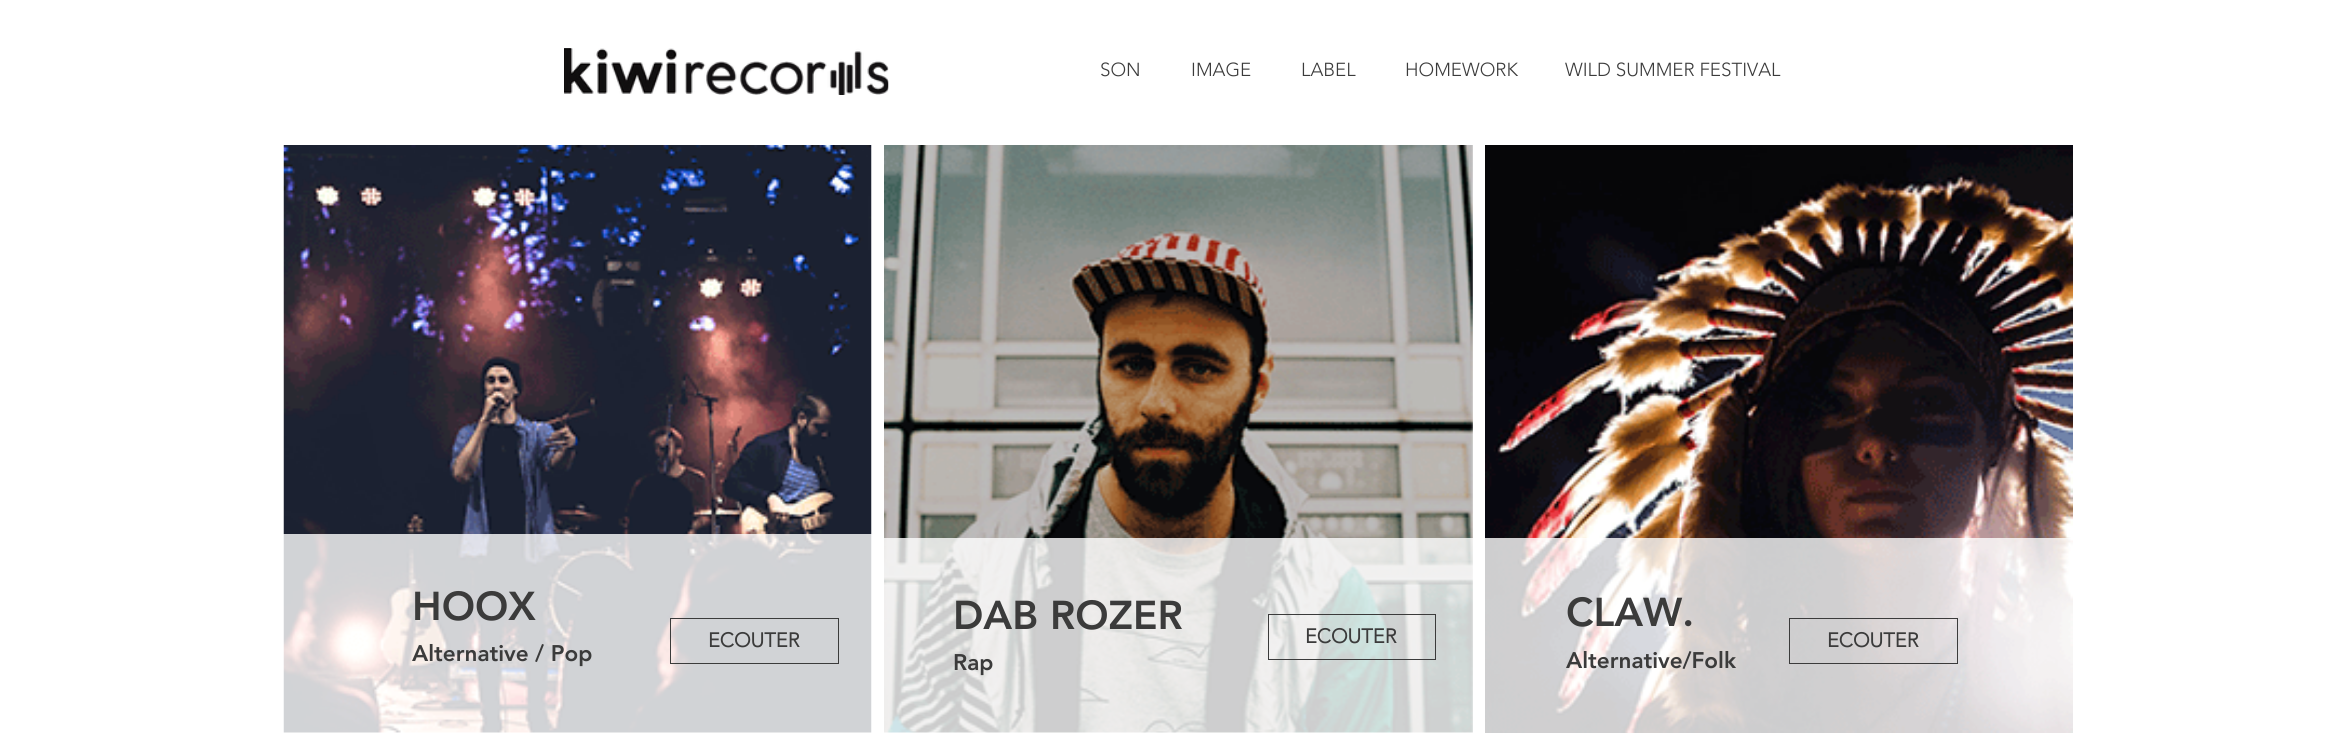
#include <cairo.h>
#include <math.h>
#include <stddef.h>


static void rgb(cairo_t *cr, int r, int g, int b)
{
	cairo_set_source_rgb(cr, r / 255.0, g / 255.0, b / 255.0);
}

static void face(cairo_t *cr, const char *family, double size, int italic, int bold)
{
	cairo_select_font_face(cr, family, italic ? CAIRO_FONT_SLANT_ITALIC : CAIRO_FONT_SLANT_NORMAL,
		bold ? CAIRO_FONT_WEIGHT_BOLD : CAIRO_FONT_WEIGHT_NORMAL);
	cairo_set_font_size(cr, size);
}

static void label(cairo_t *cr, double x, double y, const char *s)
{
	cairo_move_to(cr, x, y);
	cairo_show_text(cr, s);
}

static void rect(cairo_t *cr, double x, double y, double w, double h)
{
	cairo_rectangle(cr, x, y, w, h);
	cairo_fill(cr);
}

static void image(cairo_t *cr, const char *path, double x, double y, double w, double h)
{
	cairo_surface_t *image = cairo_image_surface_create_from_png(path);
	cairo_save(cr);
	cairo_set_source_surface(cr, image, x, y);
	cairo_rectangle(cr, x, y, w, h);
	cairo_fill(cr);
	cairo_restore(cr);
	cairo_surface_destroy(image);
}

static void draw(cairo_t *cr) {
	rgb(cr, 255, 255, 255);
	cairo_paint(cr);
	image(cr, "image0.png", 564, 48, 325, 47);
	face(cr, "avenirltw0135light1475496 Light", 18.75, 0, 0);
	rgb(cr, 59, 59, 59);
	label(cr, 1100, 76, "SON");
	label(cr, 1191, 76, "IMAGE");
	label(cr, 1301, 76, "LABEL");
	label(cr, 1405, 76, "HOMEWORK");
	label(cr, 1565, 76, "WILD SUMMER FESTIVAL");
	image(cr, "image1.png", 283, 145, 589, 588);
	image(cr, "image2.png", 884, 145, 589, 588);
	image(cr, "image3.png", 1485, 145, 588, 588);
	cairo_set_source_rgba(cr, 1, 1, 1, 0.8);
	rect(cr, 283, 534, 589, 199);
	face(cr, "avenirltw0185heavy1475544 Black", 40, 0, 0);
	rgb(cr, 59, 59, 59);
	label(cr, 412, 620, "HOOX");
	face(cr, "avenirltw0185heavy1475544 Black", 22.5, 0, 0);
	label(cr, 412, 661, "Alternative / Pop");
	cairo_rectangle(cr, 670.5, 618.5, 168, 45);
	cairo_set_line_width(cr, 1);
	cairo_stroke(cr);
	face(cr, "avenirltw0135light1475496", 20, 0, 1);
	label(cr, 708, 647, "ECOUTER");
	cairo_set_source_rgba(cr, 1, 1, 1, 0.8);
	rect(cr, 884, 538, 589, 195);
	face(cr, "avenirltw0185heavy1475544 Black", 40, 0, 0);
	rgb(cr, 59, 59, 59);
	label(cr, 953, 629, "DAB ROZER");
	face(cr, "avenirltw0185heavy1475544 Black", 22.5, 0, 0);
	label(cr, 953, 670, "Rap");
	cairo_rectangle(cr, 1268.5, 614.5, 167, 45);
	cairo_stroke(cr);
	face(cr, "avenirltw0135light1475496", 20, 0, 1);
	label(cr, 1305, 643, "ECOUTER");
	cairo_set_source_rgba(cr, 1, 1, 1, 0.8);
	rect(cr, 1485, 538, 588, 195);
	face(cr, "avenirltw0185heavy1475544 Black", 40, 0, 0);
	rgb(cr, 59, 59, 59);
	label(cr, 1566, 626, "CLAW.");
	face(cr, "avenirltw0185heavy1475544 Black", 22.5, 0, 0);
	label(cr, 1566, 668, "Alternative/Folk");
	cairo_rectangle(cr, 1789.5, 618.5, 168, 45);
	cairo_stroke(cr);
	face(cr, "avenirltw0135light1475496", 20, 0, 1);
	label(cr, 1827, 647, "ECOUTER");
}

int main(void) {
	cairo_surface_t *surface = cairo_image_surface_create(CAIRO_FORMAT_RGB24, 2351, 745);
	cairo_t *cr = cairo_create(surface);
	cairo_font_options_t *options = cairo_font_options_create();
	cairo_font_options_set_hint_metrics(options, CAIRO_HINT_METRICS_OFF);
	cairo_font_options_set_hint_style(options, CAIRO_HINT_STYLE_NONE);
	cairo_set_font_options(cr, options);
	cairo_set_miter_limit(cr, 4);
	draw(cr);
	cairo_surface_write_to_png(surface, "render.png");
	cairo_font_options_destroy(options);
	cairo_destroy(cr);
	cairo_surface_destroy(surface);
	return 0;
}
